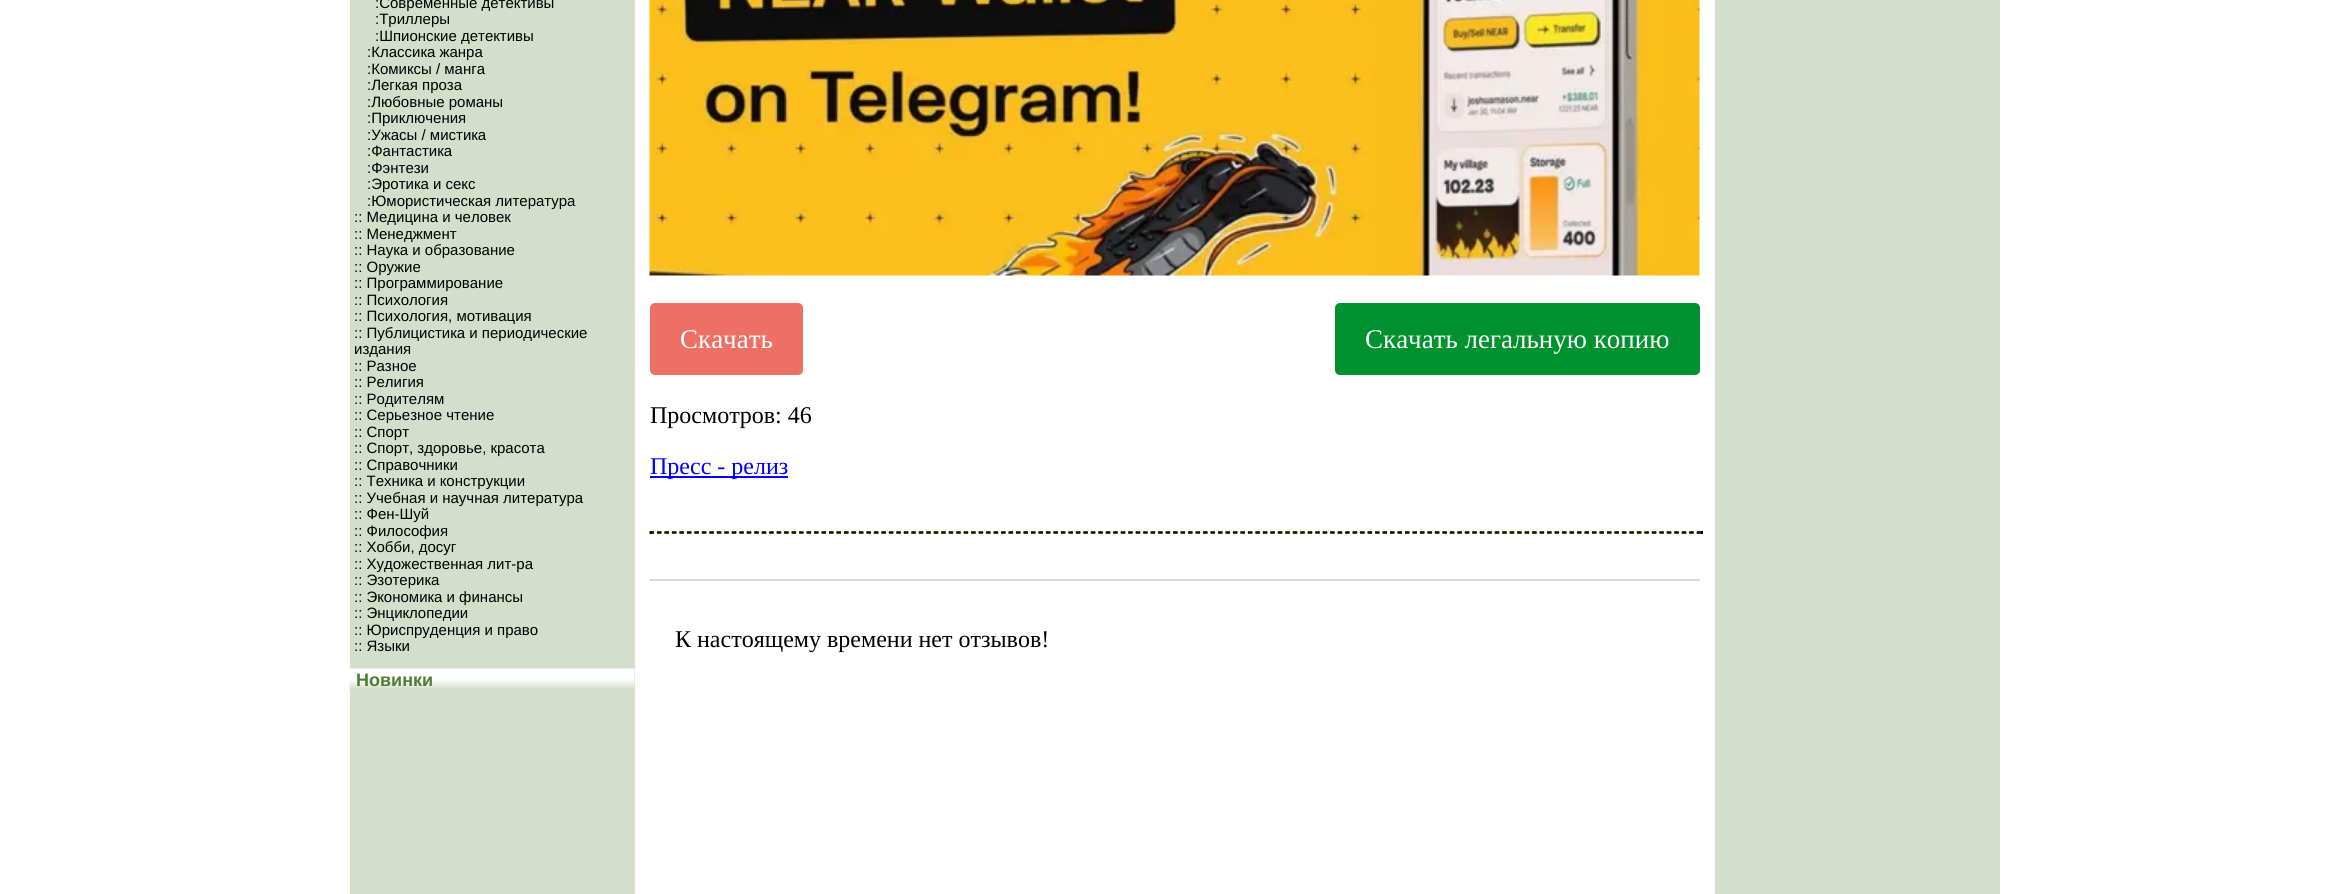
#include <cairo.h>
#include <math.h>
#include <stddef.h>


static void rgb(cairo_t *cr, int r, int g, int b)
{
	cairo_set_source_rgb(cr, r / 255.0, g / 255.0, b / 255.0);
}

static void face(cairo_t *cr, const char *family, double size, int italic, int bold)
{
	cairo_select_font_face(cr, family, italic ? CAIRO_FONT_SLANT_ITALIC : CAIRO_FONT_SLANT_NORMAL,
		bold ? CAIRO_FONT_WEIGHT_BOLD : CAIRO_FONT_WEIGHT_NORMAL);
	cairo_set_font_size(cr, size);
}

static void label(cairo_t *cr, double x, double y, const char *s)
{
	cairo_move_to(cr, x, y);
	cairo_show_text(cr, s);
}

static void rect(cairo_t *cr, double x, double y, double w, double h)
{
	cairo_rectangle(cr, x, y, w, h);
	cairo_fill(cr);
}

static void rrect(cairo_t *cr, double x, double y, double w, double h, double r)
{
	cairo_new_sub_path(cr);
	cairo_arc(cr, x + w - r, y + h - r, r, 0, M_PI / 2);
	cairo_arc(cr, x + r, y + h - r, r, M_PI / 2, M_PI);
	cairo_arc(cr, x + r, y + r, r, M_PI, 1.5 * M_PI);
	cairo_arc(cr, x + w - r, y + r, r, 1.5 * M_PI, 2 * M_PI);
	cairo_close_path(cr);
}

static void image(cairo_t *cr, const char *path, double x, double y, double w, double h)
{
	cairo_surface_t *image = cairo_image_surface_create_from_png(path);
	cairo_save(cr);
	cairo_set_source_surface(cr, image, x, y);
	cairo_rectangle(cr, x, y, w, h);
	cairo_fill(cr);
	cairo_restore(cr);
	cairo_surface_destroy(image);
}

static void draw(cairo_t *cr) {
	rgb(cr, 255, 255, 255);
	cairo_paint(cr);
	rgb(cr, 211, 222, 203);
	rect(cr, 350, 0, 285, 894);
	face(cr, "Liberation Sans", 15, 0, 0);
	rgb(cr, 0, 0, 0);
	label(cr, 375, 8, ":Современные детективы");
	label(cr, 375, 24, ":Триллеры");
	label(cr, 375, 41, ":Шпионские детективы");
	label(cr, 367, 57, ":Классика жанра");
	label(cr, 367, 74, ":Комиксы / манга");
	label(cr, 367, 90, ":Легкая проза");
	label(cr, 367, 107, ":Любовные романы");
	label(cr, 367, 123, ":Приключения");
	label(cr, 367, 140, ":Ужасы / мистика");
	label(cr, 367, 156, ":Фантастика");
	label(cr, 367, 173, ":Фэнтези");
	label(cr, 367, 189, ":Эротика и секс");
	label(cr, 367, 206, ":Юмористическая литература");
	label(cr, 354, 222, ":: Медицина и человек");
	label(cr, 354, 239, ":: Менеджмент");
	label(cr, 354, 255, ":: Наука и образование");
	label(cr, 354, 272, ":: Оружие");
	label(cr, 354, 288, ":: Программирование");
	label(cr, 354, 305, ":: Психология");
	label(cr, 354, 321, ":: Психология, мотивация");
	label(cr, 354, 338, ":: Публицистика и периодические");
	label(cr, 354, 354, "издания");
	label(cr, 354, 371, ":: Разное");
	label(cr, 354, 387, ":: Религия");
	label(cr, 354, 404, ":: Родителям");
	label(cr, 354, 420, ":: Серьезное чтение");
	label(cr, 354, 437, ":: Спорт");
	label(cr, 354, 453, ":: Спорт, здоровье, красота");
	label(cr, 354, 470, ":: Справочники");
	label(cr, 354, 486, ":: Техника и конструкции");
	label(cr, 354, 503, ":: Учебная и научная литература");
	label(cr, 354, 519, ":: Фен-Шуй");
	label(cr, 354, 536, ":: Философия");
	label(cr, 354, 552, ":: Хобби, досуг");
	label(cr, 354, 569, ":: Художественная лит-ра");
	label(cr, 354, 585, ":: Эзотерика");
	label(cr, 354, 602, ":: Экономика и финансы");
	label(cr, 354, 618, ":: Энциклопедии");
	label(cr, 354, 635, ":: Юриспруденция и право");
	label(cr, 354, 651, ":: Языки");
	image(cr, "image0.png", 349, 668, 2, 23);
	image(cr, "image1.png", 351, 668, 284, 21);
	face(cr, "Liberation Sans", 18, 0, 1);
	rgb(cr, 79, 125, 49);
	label(cr, 356, 686, "Новинки");
	image(cr, "image2.png", 649, 0, 1051, 276);
	rgb(cr, 236, 112, 99);
	rrect(cr, 650, 303, 153, 72, 5);
	cairo_fill(cr);
	face(cr, "Liberation Serif", 27, 0, 0);
	rgb(cr, 255, 255, 255);
	label(cr, 680, 348, "Скачать");
	rgb(cr, 0, 146, 46);
	rrect(cr, 1335, 303, 365, 72, 5);
	cairo_fill(cr);
	rgb(cr, 255, 255, 255);
	label(cr, 1365, 348, "Скачать легальную копию");
	face(cr, "Liberation Serif", 24, 0, 0);
	rgb(cr, 0, 0, 0);
	label(cr, 650, 423, "Просмотров: 46");
	rgb(cr, 0, 0, 255);
	rect(cr, 650, 476, 138, 2);
	label(cr, 650, 474, "Пресс - релиз");
	rgb(cr, 255, 255, 204);
	rect(cr, 650, 531, 1053, 3);
	cairo_new_path(cr);
	cairo_move_to(cr, 649.5, 532);
	cairo_line_to(cr, 1702.5, 532);
	rgb(cr, 0, 0, 0);
	cairo_set_line_width(cr, 1.5);
	cairo_set_dash(cr, (double[]){4.5, 2.98}, 2, 0);
	cairo_stroke(cr);
	rect(cr, 1701, 531, 2, 3);
	cairo_new_path(cr);
	cairo_move_to(cr, 649.5, 533);
	cairo_line_to(cr, 1702.5, 533);
	cairo_stroke(cr);
	rect(cr, 650, 531, 2, 3);
	rgb(cr, 211, 222, 203);
	rect(cr, 650, 579, 1050, 2);
	rgb(cr, 0, 0, 0);
	label(cr, 675, 647, "К настоящему времени нет отзывов!");
	rgb(cr, 211, 222, 203);
	rect(cr, 1715, 0, 285, 894);
}

int main(void) {
	cairo_surface_t *surface = cairo_image_surface_create(CAIRO_FORMAT_RGB24, 2349, 894);
	cairo_t *cr = cairo_create(surface);
	cairo_font_options_t *options = cairo_font_options_create();
	cairo_font_options_set_hint_metrics(options, CAIRO_HINT_METRICS_OFF);
	cairo_font_options_set_hint_style(options, CAIRO_HINT_STYLE_NONE);
	cairo_set_font_options(cr, options);
	cairo_set_miter_limit(cr, 4);
	draw(cr);
	cairo_surface_write_to_png(surface, "render.png");
	cairo_font_options_destroy(options);
	cairo_destroy(cr);
	cairo_surface_destroy(surface);
	return 0;
}
